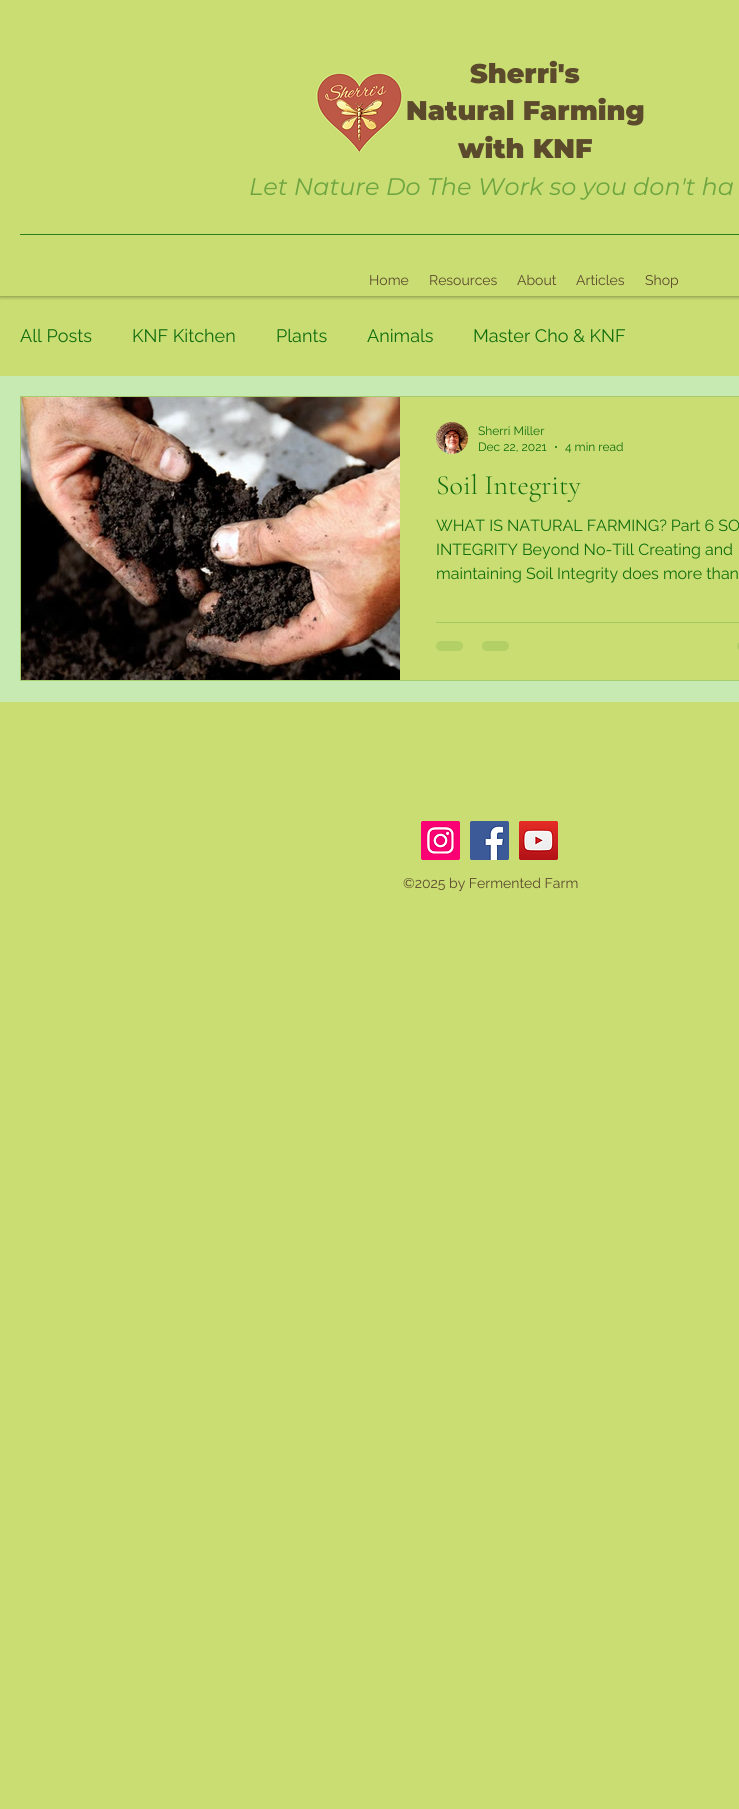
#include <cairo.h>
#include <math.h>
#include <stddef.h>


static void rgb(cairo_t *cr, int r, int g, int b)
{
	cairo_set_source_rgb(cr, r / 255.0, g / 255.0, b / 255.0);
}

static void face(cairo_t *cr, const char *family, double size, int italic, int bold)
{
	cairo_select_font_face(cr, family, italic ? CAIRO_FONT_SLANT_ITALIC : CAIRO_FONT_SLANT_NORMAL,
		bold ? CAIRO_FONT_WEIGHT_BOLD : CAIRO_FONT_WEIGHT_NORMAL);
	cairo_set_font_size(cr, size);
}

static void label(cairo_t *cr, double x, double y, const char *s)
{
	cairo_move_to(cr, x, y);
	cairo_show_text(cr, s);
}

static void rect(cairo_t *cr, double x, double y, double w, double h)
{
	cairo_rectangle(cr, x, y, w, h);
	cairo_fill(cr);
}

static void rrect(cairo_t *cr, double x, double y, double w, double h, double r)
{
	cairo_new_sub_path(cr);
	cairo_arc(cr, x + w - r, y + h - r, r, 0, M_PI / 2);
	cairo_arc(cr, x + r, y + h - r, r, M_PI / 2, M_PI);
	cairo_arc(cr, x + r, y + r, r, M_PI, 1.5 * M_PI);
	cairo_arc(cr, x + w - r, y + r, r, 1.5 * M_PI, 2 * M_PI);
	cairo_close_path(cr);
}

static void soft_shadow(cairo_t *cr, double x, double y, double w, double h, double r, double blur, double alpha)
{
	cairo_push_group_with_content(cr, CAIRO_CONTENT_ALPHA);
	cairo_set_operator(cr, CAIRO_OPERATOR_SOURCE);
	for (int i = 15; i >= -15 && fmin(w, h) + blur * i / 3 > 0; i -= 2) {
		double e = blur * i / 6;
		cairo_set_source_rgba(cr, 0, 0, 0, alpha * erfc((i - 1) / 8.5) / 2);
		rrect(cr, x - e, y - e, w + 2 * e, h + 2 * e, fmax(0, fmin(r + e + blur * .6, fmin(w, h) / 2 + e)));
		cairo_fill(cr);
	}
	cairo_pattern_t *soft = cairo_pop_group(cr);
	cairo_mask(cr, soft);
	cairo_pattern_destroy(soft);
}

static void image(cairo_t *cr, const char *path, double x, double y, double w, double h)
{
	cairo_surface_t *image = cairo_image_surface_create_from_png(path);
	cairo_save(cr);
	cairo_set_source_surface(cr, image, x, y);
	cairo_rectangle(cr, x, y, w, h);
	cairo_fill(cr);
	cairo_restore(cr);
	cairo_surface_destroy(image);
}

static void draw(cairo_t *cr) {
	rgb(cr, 201, 221, 114);
	cairo_paint(cr);
	cairo_save(cr);
	cairo_rectangle(cr, 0, 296, 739, 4);
	cairo_clip(cr);
	rgb(cr, 0, 0, 0);
	soft_shadow(cr, 0, 0, 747, 296, 0, 2.5, 0.5);
	cairo_restore(cr);
	image(cr, "image0.png", 316, 72, 87, 81);
	face(cr, "Montserrat Thin", 27, 0, 0);
	rgb(cr, 91, 74, 44);
	label(cr, 470, 83, "Sherri's");
	label(cr, 406, 120, "Natural Farming");
	label(cr, 458, 158, "with KNF");
	face(cr, "Montserrat", 24, 1, 0);
	rgb(cr, 110, 165, 64);
	label(cr, 249, 195, "Let Nature Do The Work so you don't ha");
	rgb(cr, 45, 126, 29);
	rect(cr, 20, 234, 719, 1);
	face(cr, "Raleway", 14, 0, 0);
	rgb(cr, 91, 74, 44);
	label(cr, 369, 285, "Home");
	label(cr, 429, 285, "Resources");
	label(cr, 517, 285, "About");
	label(cr, 576, 285, "Articles");
	label(cr, 645, 285, "Shop");
	rgb(cr, 199, 233, 178);
	rect(cr, 0, 376, 739, 326);
	face(cr, "Raleway", 18, 0, 0);
	rgb(cr, 18, 109, 14);
	label(cr, 20, 342, "All Posts");
	label(cr, 132, 342, "KNF Kitchen");
	label(cr, 276, 342, "Plants");
	label(cr, 367, 342, "Animals");
	label(cr, 473, 342, "Master Cho & KNF");
	cairo_rectangle(cr, 20.5, 396.5, 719, 284);
	rgb(cr, 166, 203, 111);
	cairo_set_line_width(cr, 1);
	cairo_stroke(cr);
	image(cr, "image1.png", 21, 397, 379, 283);
	rgb(cr, 201, 221, 114);
	rect(cr, 400, 397, 339, 283);
	image(cr, "image2.png", 436, 422, 32, 32);
	face(cr, "Raleway", 12, 0, 0);
	rgb(cr, 18, 109, 14);
	label(cr, 478, 435, "Sherri Miller");
	label(cr, 478, 451, "Dec 22, 2021");
	cairo_new_path(cr);
	cairo_arc(cr, 556, 447, 1, 0, 2 * M_PI);
	cairo_fill(cr);
	label(cr, 565, 451, "4 min read");
	face(cr, "Cormorant Garamond Light", 28, 0, 0);
	label(cr, 436, 494, "Soil Integrity");
	face(cr, "Raleway", 16, 0, 0);
	label(cr, 436, 531, "WHAT IS NATURAL FARMING? Part 6 SO");
	label(cr, 436, 555, "INTEGRITY Beyond No-Till Creating and");
	label(cr, 436, 579, "maintaining Soil Integrity does more than");
	rgb(cr, 164, 199, 94);
	rect(cr, 436, 622, 303, 1);
	rgb(cr, 179, 208, 102);
	rrect(cr, 436, 641, 27, 10, 5);
	cairo_fill(cr);
	rrect(cr, 482, 641, 27, 10, 5);
	cairo_fill(cr);
	rrect(cr, 737, 641, 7, 10, 5);
	cairo_fill(cr);
	image(cr, "image3.png", 421, 821, 39, 39);
	image(cr, "image4.png", 470, 821, 39, 39);
	image(cr, "image5.png", 519, 821, 39, 39);
	face(cr, "Raleway", 14, 0, 0);
	rgb(cr, 91, 74, 44);
	label(cr, 403, 888, "©2025 by Fermented Farm");
}

int main(void) {
	cairo_surface_t *surface = cairo_image_surface_create(CAIRO_FORMAT_RGB24, 739, 1809);
	cairo_t *cr = cairo_create(surface);
	cairo_font_options_t *options = cairo_font_options_create();
	cairo_font_options_set_hint_metrics(options, CAIRO_HINT_METRICS_OFF);
	cairo_font_options_set_hint_style(options, CAIRO_HINT_STYLE_NONE);
	cairo_set_font_options(cr, options);
	cairo_set_miter_limit(cr, 4);
	draw(cr);
	cairo_surface_write_to_png(surface, "render.png");
	cairo_font_options_destroy(options);
	cairo_destroy(cr);
	cairo_surface_destroy(surface);
	return 0;
}
